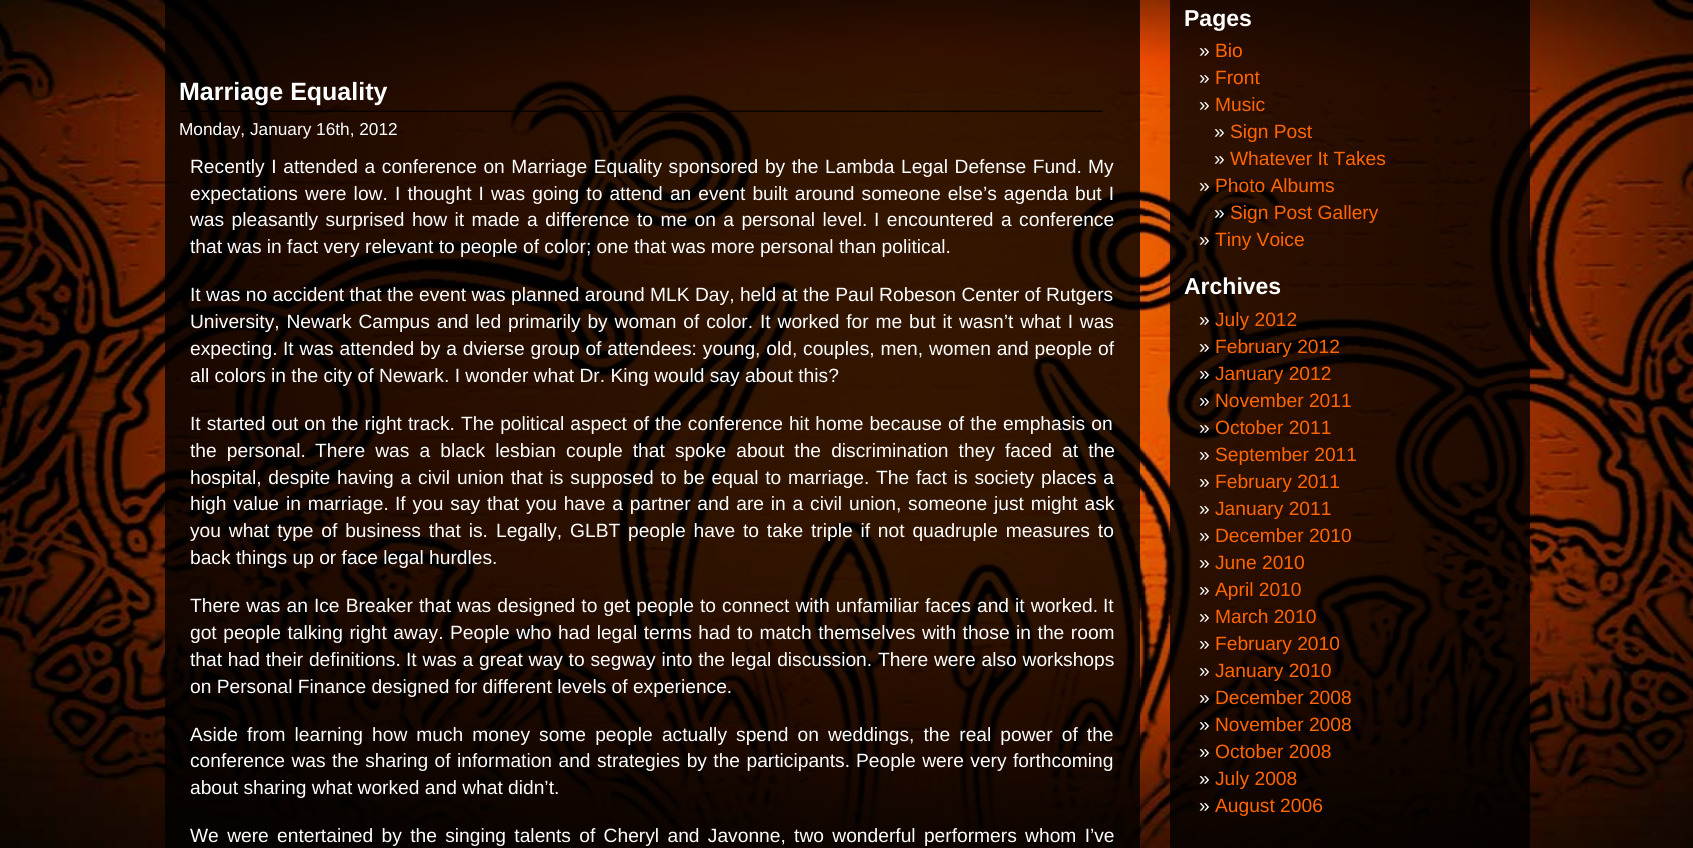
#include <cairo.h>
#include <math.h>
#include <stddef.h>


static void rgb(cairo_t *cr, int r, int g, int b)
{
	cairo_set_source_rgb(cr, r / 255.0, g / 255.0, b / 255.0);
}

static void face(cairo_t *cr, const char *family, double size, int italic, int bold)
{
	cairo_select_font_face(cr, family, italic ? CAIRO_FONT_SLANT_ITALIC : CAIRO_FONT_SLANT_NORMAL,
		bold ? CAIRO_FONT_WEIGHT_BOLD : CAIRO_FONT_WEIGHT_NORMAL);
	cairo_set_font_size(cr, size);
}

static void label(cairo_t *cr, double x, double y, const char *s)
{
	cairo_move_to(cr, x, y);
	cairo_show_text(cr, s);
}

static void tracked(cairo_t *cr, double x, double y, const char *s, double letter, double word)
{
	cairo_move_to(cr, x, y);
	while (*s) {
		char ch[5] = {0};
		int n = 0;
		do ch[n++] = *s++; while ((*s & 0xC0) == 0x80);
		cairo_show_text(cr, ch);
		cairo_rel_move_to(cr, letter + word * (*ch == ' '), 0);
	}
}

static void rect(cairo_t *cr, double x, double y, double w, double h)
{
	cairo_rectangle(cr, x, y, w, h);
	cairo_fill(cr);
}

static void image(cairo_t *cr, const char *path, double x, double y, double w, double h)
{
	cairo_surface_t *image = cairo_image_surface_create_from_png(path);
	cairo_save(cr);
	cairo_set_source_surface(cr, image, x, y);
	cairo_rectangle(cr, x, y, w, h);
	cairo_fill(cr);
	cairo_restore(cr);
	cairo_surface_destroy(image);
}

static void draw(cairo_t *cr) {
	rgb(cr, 255, 255, 255);
	cairo_paint(cr);
	image(cr, "image0.png", 0, 0, 1693, 848);
	cairo_set_source_rgba(cr, 0, 0, 0, 0.8);
	rect(cr, 165, 0, 975, 848);
	face(cr, "Liberation Sans", 25, 0, 1);
	rgb(cr, 255, 255, 255);
	label(cr, 179, 100, "Marriage Equality");
	image(cr, "image1.png", 180, 110, 923, 2);
	face(cr, "Liberation Sans", 17.25, 0, 0);
	label(cr, 179, 135, "Monday, January 16th, 2012");
	face(cr, "Liberation Sans", 19.2, 0, 0);
	tracked(cr, 190, 173, "Recently I attended a conference on Marriage Equality sponsored by the Lambda Legal Defense Fund.", 0, 1.25);
	label(cr, 1088, 173, "My");
	tracked(cr, 190, 200, "expectations were low.", 0, 1.75);
	tracked(cr, 395, 200, "I thought I was going to attend an event built around someone else’s agenda but I", 0, 1.75);
	tracked(cr, 190, 226, "was pleasantly surprised how it made a difference to me on a personal level.", 0, 2.1);
	tracked(cr, 874, 226, "I encountered a conference", 0, 2.1);
	label(cr, 190, 253, "that was in fact very relevant to people of color; one that was more personal than political.");
	tracked(cr, 190, 301, "It was no accident that the event was planned around MLK Day, held at the Paul Robeson Center of Rutgers", 0, 0.1);
	tracked(cr, 190, 328, "University, Newark Campus and led primarily by woman of color.", 0, 1.5);
	tracked(cr, 760, 328, "It worked for me but it wasn’t what I was", 0, 1.5);
	label(cr, 190, 355, "expecting.");
	tracked(cr, 283, 355, "It was attended by a dvierse group of attendees: young, old, couples, men, women and people of", 0, 0.5);
	label(cr, 190, 382, "all colors in the city of Newark. I wonder what Dr. King would say about this?");
	tracked(cr, 190, 430, "It started out on the right track.", 0, 0.75);
	tracked(cr, 461, 430, "The political aspect of the conference hit home because of the emphasis on", 0, 0.75);
	tracked(cr, 190, 457, "the personal.", 0, 4.75);
	tracked(cr, 315, 457, "There was a black lesbian couple that spoke about the discrimination they faced at the", 0, 4.75);
	tracked(cr, 190, 484, "hospital, despite having a civil union that is supposed to be equal to marriage.", 0, 1.5);
	tracked(cr, 876, 484, "The fact is society places a", 0, 1.5);
	tracked(cr, 190, 510, "high value in marriage.", 0, 1.5);
	tracked(cr, 395, 510, "If you say that you have a partner and are in a civil union, someone just might ask", 0, 1.5);
	tracked(cr, 190, 537, "you what type of business that is.", 0, 2.5);
	tracked(cr, 496, 537, "Legally, GLBT people have to take triple if not quadruple measures to", 0, 2.5);
	label(cr, 190, 564, "back things up or face legal hurdles.");
	tracked(cr, 190, 612, "There was an Ice Breaker that was designed to get people to connect with unfamiliar faces and it worked.", 0, 0.75);
	label(cr, 1103, 612, "It");
	tracked(cr, 190, 639, "got people talking right away.", 0, 1.2);
	tracked(cr, 450, 639, "People who had legal terms had to match themselves with those in the room", 0, 1.2);
	tracked(cr, 190, 666, "that had their definitions.", 0, 0.5);
	tracked(cr, 406, 666, "It was a great way to segway into the legal discussion.", 0, 0.5);
	tracked(cr, 878, 666, "There were also workshops", 0, 0.5);
	label(cr, 190, 693, "on Personal Finance designed for different levels of experience.");
	tracked(cr, 190, 741, "Aside from learning how much money some people actually spend on weddings, the real power of the", 0, 3.75);
	tracked(cr, 190, 767, "conference was the sharing of information and strategies by the participants.", 0, 1.1);
	tracked(cr, 856, 767, "People were very forthcoming", 0, 1.1);
	label(cr, 190, 794, "about sharing what worked and what didn’t.");
	tracked(cr, 190, 842, "We were entertained by the singing talents of Cheryl and Javonne, two wonderful performers whom I’ve", 0, 3);
	cairo_set_source_rgba(cr, 0, 0, 0, 0.8);
	rect(cr, 1170, 0, 360, 848);
	face(cr, "Liberation Sans", 23, 0, 1);
	rgb(cr, 255, 255, 255);
	label(cr, 1184, 26, "Pages");
	face(cr, "Liberation Sans", 19.2, 0, 0);
	label(cr, 1199, 57, "»");
	rgb(cr, 255, 102, 0);
	label(cr, 1215, 57, "Bio");
	rgb(cr, 255, 255, 255);
	label(cr, 1199, 84, "»");
	rgb(cr, 255, 102, 0);
	label(cr, 1215, 84, "Front");
	rgb(cr, 255, 255, 255);
	label(cr, 1199, 111, "»");
	rgb(cr, 255, 102, 0);
	label(cr, 1215, 111, "Music");
	rgb(cr, 255, 255, 255);
	label(cr, 1214, 138, "»");
	rgb(cr, 255, 102, 0);
	label(cr, 1230, 138, "Sign Post");
	rgb(cr, 255, 255, 255);
	label(cr, 1214, 165, "»");
	rgb(cr, 255, 102, 0);
	label(cr, 1230, 165, "Whatever It Takes");
	rgb(cr, 255, 255, 255);
	label(cr, 1199, 192, "»");
	rgb(cr, 255, 102, 0);
	label(cr, 1215, 192, "Photo Albums");
	rgb(cr, 255, 255, 255);
	label(cr, 1214, 219, "»");
	rgb(cr, 255, 102, 0);
	label(cr, 1230, 219, "Sign Post Gallery");
	rgb(cr, 255, 255, 255);
	label(cr, 1199, 246, "»");
	rgb(cr, 255, 102, 0);
	label(cr, 1215, 246, "Tiny Voice");
	face(cr, "Liberation Sans", 23, 0, 1);
	rgb(cr, 255, 255, 255);
	label(cr, 1184, 294, "Archives");
	face(cr, "Liberation Sans", 19.2, 0, 0);
	label(cr, 1199, 326, "»");
	rgb(cr, 255, 102, 0);
	label(cr, 1215, 326, "July 2012");
	rgb(cr, 255, 255, 255);
	label(cr, 1199, 353, "»");
	rgb(cr, 255, 102, 0);
	label(cr, 1215, 353, "February 2012");
	rgb(cr, 255, 255, 255);
	label(cr, 1199, 380, "»");
	rgb(cr, 255, 102, 0);
	label(cr, 1215, 380, "January 2012");
	rgb(cr, 255, 255, 255);
	label(cr, 1199, 407, "»");
	rgb(cr, 255, 102, 0);
	label(cr, 1215, 407, "November 2011");
	rgb(cr, 255, 255, 255);
	label(cr, 1199, 434, "»");
	rgb(cr, 255, 102, 0);
	label(cr, 1215, 434, "October 2011");
	rgb(cr, 255, 255, 255);
	label(cr, 1199, 461, "»");
	rgb(cr, 255, 102, 0);
	label(cr, 1215, 461, "September 2011");
	rgb(cr, 255, 255, 255);
	label(cr, 1199, 488, "»");
	rgb(cr, 255, 102, 0);
	label(cr, 1215, 488, "February 2011");
	rgb(cr, 255, 255, 255);
	label(cr, 1199, 515, "»");
	rgb(cr, 255, 102, 0);
	label(cr, 1215, 515, "January 2011");
	rgb(cr, 255, 255, 255);
	label(cr, 1199, 542, "»");
	rgb(cr, 255, 102, 0);
	label(cr, 1215, 542, "December 2010");
	rgb(cr, 255, 255, 255);
	label(cr, 1199, 569, "»");
	rgb(cr, 255, 102, 0);
	label(cr, 1215, 569, "June 2010");
	rgb(cr, 255, 255, 255);
	label(cr, 1199, 596, "»");
	rgb(cr, 255, 102, 0);
	label(cr, 1215, 596, "April 2010");
	rgb(cr, 255, 255, 255);
	label(cr, 1199, 623, "»");
	rgb(cr, 255, 102, 0);
	label(cr, 1215, 623, "March 2010");
	rgb(cr, 255, 255, 255);
	label(cr, 1199, 650, "»");
	rgb(cr, 255, 102, 0);
	label(cr, 1215, 650, "February 2010");
	rgb(cr, 255, 255, 255);
	label(cr, 1199, 677, "»");
	rgb(cr, 255, 102, 0);
	label(cr, 1215, 677, "January 2010");
	rgb(cr, 255, 255, 255);
	label(cr, 1199, 704, "»");
	rgb(cr, 255, 102, 0);
	label(cr, 1215, 704, "December 2008");
	rgb(cr, 255, 255, 255);
	label(cr, 1199, 731, "»");
	rgb(cr, 255, 102, 0);
	label(cr, 1215, 731, "November 2008");
	rgb(cr, 255, 255, 255);
	label(cr, 1199, 758, "»");
	rgb(cr, 255, 102, 0);
	label(cr, 1215, 758, "October 2008");
	rgb(cr, 255, 255, 255);
	label(cr, 1199, 785, "»");
	rgb(cr, 255, 102, 0);
	label(cr, 1215, 785, "July 2008");
	rgb(cr, 255, 255, 255);
	label(cr, 1199, 812, "»");
	rgb(cr, 255, 102, 0);
	label(cr, 1215, 812, "August 2006");
}

int main(void) {
	cairo_surface_t *surface = cairo_image_surface_create(CAIRO_FORMAT_RGB24, 1693, 848);
	cairo_t *cr = cairo_create(surface);
	cairo_font_options_t *options = cairo_font_options_create();
	cairo_font_options_set_hint_metrics(options, CAIRO_HINT_METRICS_OFF);
	cairo_font_options_set_hint_style(options, CAIRO_HINT_STYLE_NONE);
	cairo_set_font_options(cr, options);
	cairo_set_miter_limit(cr, 4);
	draw(cr);
	cairo_surface_write_to_png(surface, "render.png");
	cairo_font_options_destroy(options);
	cairo_destroy(cr);
	cairo_surface_destroy(surface);
	return 0;
}
